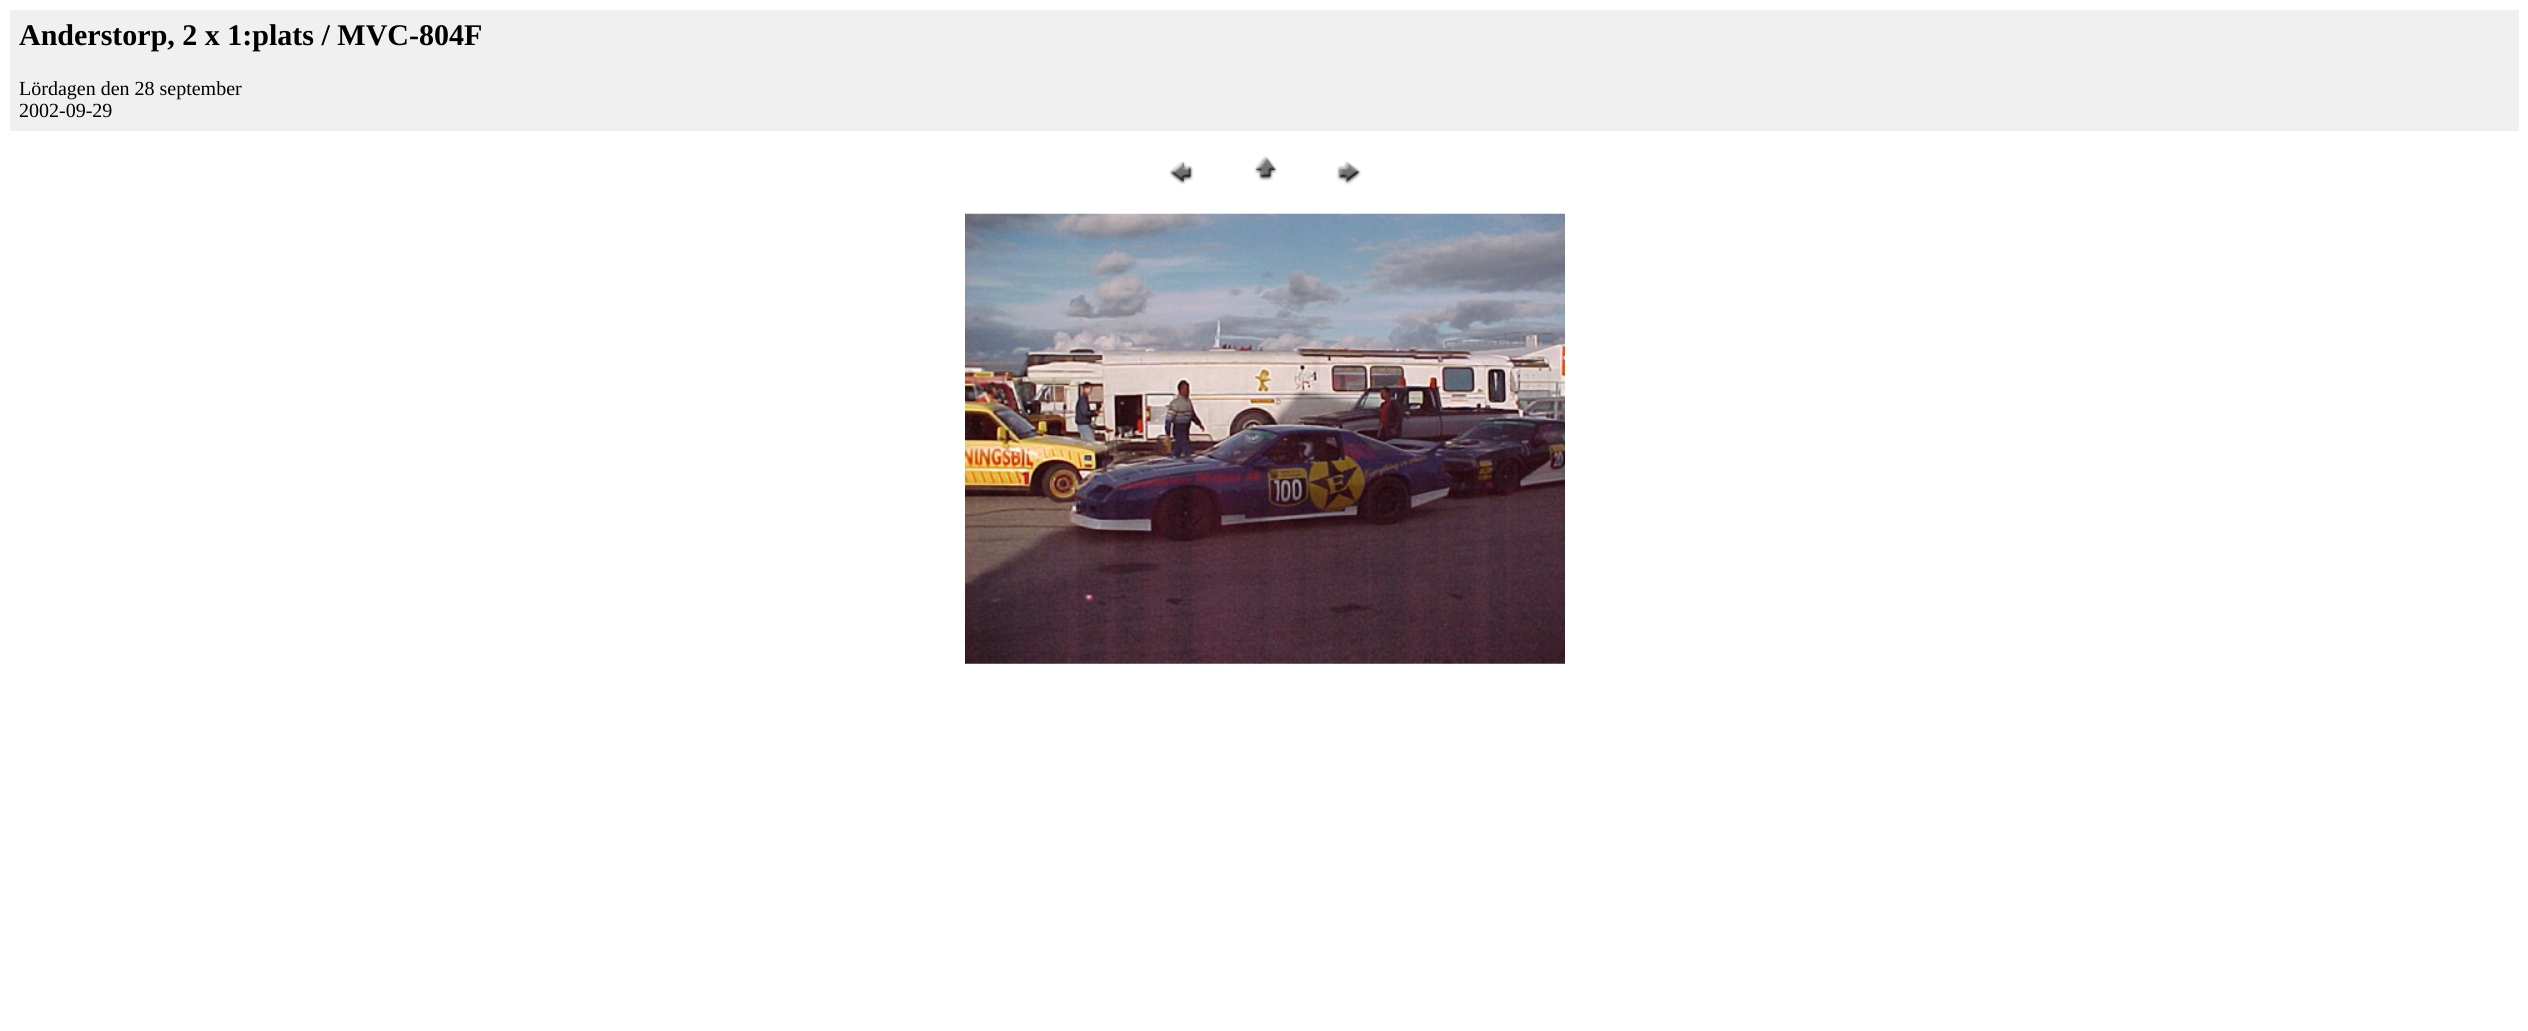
#include <cairo.h>
#include <math.h>
#include <stddef.h>


static void rgb(cairo_t *cr, int r, int g, int b)
{
	cairo_set_source_rgb(cr, r / 255.0, g / 255.0, b / 255.0);
}

static void face(cairo_t *cr, const char *family, double size, int italic, int bold)
{
	cairo_select_font_face(cr, family, italic ? CAIRO_FONT_SLANT_ITALIC : CAIRO_FONT_SLANT_NORMAL,
		bold ? CAIRO_FONT_WEIGHT_BOLD : CAIRO_FONT_WEIGHT_NORMAL);
	cairo_set_font_size(cr, size);
}

static void label(cairo_t *cr, double x, double y, const char *s)
{
	cairo_move_to(cr, x, y);
	cairo_show_text(cr, s);
}

static void rect(cairo_t *cr, double x, double y, double w, double h)
{
	cairo_rectangle(cr, x, y, w, h);
	cairo_fill(cr);
}

static void image(cairo_t *cr, const char *path, double x, double y, double w, double h)
{
	cairo_surface_t *image = cairo_image_surface_create_from_png(path);
	cairo_save(cr);
	cairo_set_source_surface(cr, image, x, y);
	cairo_rectangle(cr, x, y, w, h);
	cairo_fill(cr);
	cairo_restore(cr);
	cairo_surface_destroy(image);
}

static void draw(cairo_t *cr) {
	rgb(cr, 255, 255, 255);
	cairo_paint(cr);
	rgb(cr, 240, 240, 240);
	rect(cr, 10, 10, 2509, 121);
	face(cr, "Liberation Serif", 30, 0, 1);
	rgb(cr, 0, 0, 0);
	label(cr, 19, 45, "Anderstorp, 2 x 1:plats / MVC-804F");
	face(cr, "Liberation Serif", 20, 0, 0);
	label(cr, 19, 95, "Lördagen den 28 september");
	label(cr, 19, 117, "2002-09-29");
	image(cr, "image0.png", 1169, 161, 25, 24);
	image(cr, "image1.png", 1254, 156, 24, 25);
	image(cr, "image2.png", 1336, 161, 26, 24);
	image(cr, "image3.png", 965, 213, 600, 451);
}

int main(void) {
	cairo_surface_t *surface = cairo_image_surface_create(CAIRO_FORMAT_RGB24, 2528, 1031);
	cairo_t *cr = cairo_create(surface);
	cairo_font_options_t *options = cairo_font_options_create();
	cairo_font_options_set_hint_metrics(options, CAIRO_HINT_METRICS_OFF);
	cairo_font_options_set_hint_style(options, CAIRO_HINT_STYLE_NONE);
	cairo_set_font_options(cr, options);
	cairo_set_miter_limit(cr, 4);
	draw(cr);
	cairo_surface_write_to_png(surface, "render.png");
	cairo_font_options_destroy(options);
	cairo_destroy(cr);
	cairo_surface_destroy(surface);
	return 0;
}
